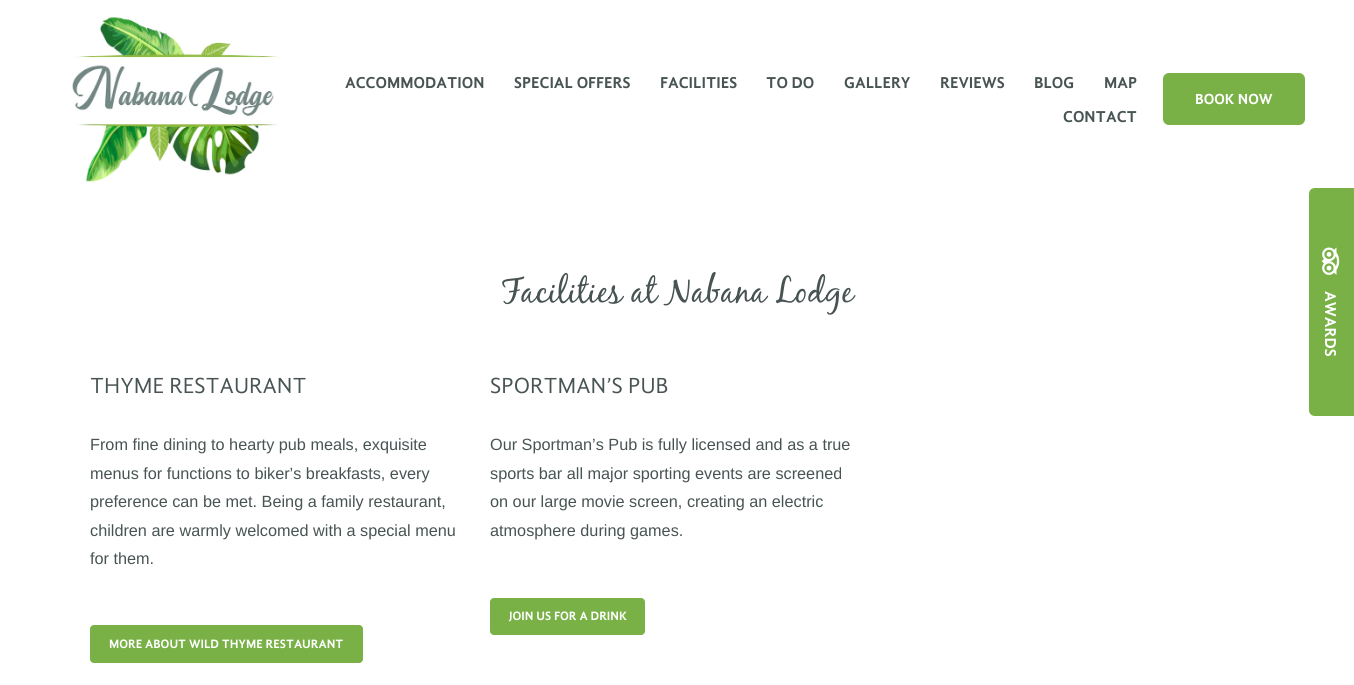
#include <cairo.h>
#include <math.h>
#include <stddef.h>


static void rgb(cairo_t *cr, int r, int g, int b)
{
	cairo_set_source_rgb(cr, r / 255.0, g / 255.0, b / 255.0);
}

static void face(cairo_t *cr, const char *family, double size, int italic, int bold)
{
	cairo_select_font_face(cr, family, italic ? CAIRO_FONT_SLANT_ITALIC : CAIRO_FONT_SLANT_NORMAL,
		bold ? CAIRO_FONT_WEIGHT_BOLD : CAIRO_FONT_WEIGHT_NORMAL);
	cairo_set_font_size(cr, size);
}

static void label(cairo_t *cr, double x, double y, const char *s)
{
	cairo_move_to(cr, x, y);
	cairo_show_text(cr, s);
}

static void rrect(cairo_t *cr, double x, double y, double w, double h, double r)
{
	cairo_new_sub_path(cr);
	cairo_arc(cr, x + w - r, y + h - r, r, 0, M_PI / 2);
	cairo_arc(cr, x + r, y + h - r, r, M_PI / 2, M_PI);
	cairo_arc(cr, x + r, y + r, r, M_PI, 1.5 * M_PI);
	cairo_arc(cr, x + w - r, y + r, r, 1.5 * M_PI, 2 * M_PI);
	cairo_close_path(cr);
}

static void image(cairo_t *cr, const char *path, double x, double y, double w, double h)
{
	cairo_surface_t *image = cairo_image_surface_create_from_png(path);
	cairo_save(cr);
	cairo_set_source_surface(cr, image, x, y);
	cairo_rectangle(cr, x, y, w, h);
	cairo_fill(cr);
	cairo_restore(cr);
	cairo_surface_destroy(image);
}

static void draw(cairo_t *cr) {
	rgb(cr, 255, 255, 255);
	cairo_paint(cr);
	image(cr, "image0.png", 72, 17, 208, 165);
	face(cr, "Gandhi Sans", 16.25, 0, 1);
	rgb(cr, 72, 84, 83);
	label(cr, 345, 88, "ACCOMMODATION");
	label(cr, 514, 88, "SPECIAL OFFERS");
	label(cr, 660, 88, "FACILITIES");
	label(cr, 766, 88, "TO DO");
	label(cr, 844, 88, "GALLERY");
	label(cr, 940, 88, "REVIEWS");
	label(cr, 1034, 88, "BLOG");
	label(cr, 1104, 88, "MAP");
	label(cr, 1063, 122, "CONTACT");
	rgb(cr, 121, 177, 71);
	rrect(cr, 1163, 73, 142, 52, 6);
	cairo_fill(cr);
	face(cr, "Gandhi Sans", 15, 0, 1);
	rgb(cr, 255, 255, 255);
	label(cr, 1195, 104, "BOOK NOW");
	face(cr, "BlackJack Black", 35, 0, 0);
	rgb(cr, 72, 84, 83);
	label(cr, 501, 302, "Facilities at Nabana Lodge");
	face(cr, "Gandhi Sans", 22.5, 0, 0);
	label(cr, 90, 393, "THYME RESTAURANT");
	face(cr, "Liberation Sans", 16.25, 0, 0);
	label(cr, 90, 450, "From fine dining to hearty pub meals, exquisite");
	label(cr, 90, 479, "menus for functions to biker’s breakfasts, every");
	label(cr, 90, 507, "preference can be met. Being a family restaurant,");
	label(cr, 90, 536, "children are warmly welcomed with a special menu");
	label(cr, 90, 564, "for them.");
	rgb(cr, 121, 177, 71);
	rrect(cr, 90, 625, 273, 38, 4);
	cairo_fill(cr);
	face(cr, "Gandhi Sans", 12.5, 0, 1);
	rgb(cr, 255, 255, 255);
	label(cr, 109, 648, "MORE ABOUT WILD THYME RESTAURANT");
	face(cr, "Gandhi Sans", 22.5, 0, 0);
	rgb(cr, 72, 84, 83);
	label(cr, 490, 393, "SPORTMAN’S PUB");
	face(cr, "Liberation Sans", 16.25, 0, 0);
	label(cr, 490, 450, "Our Sportman’s Pub is fully licensed and as a true");
	label(cr, 490, 479, "sports bar all major sporting events are screened");
	label(cr, 490, 507, "on our large movie screen, creating an electric");
	label(cr, 490, 536, "atmosphere during games.");
	rgb(cr, 121, 177, 71);
	rrect(cr, 490, 598, 155, 37, 4);
	cairo_fill(cr);
	face(cr, "Gandhi Sans", 12.5, 0, 1);
	rgb(cr, 255, 255, 255);
	label(cr, 509, 620, "JOIN US FOR A DRINK");
	rgb(cr, 121, 177, 71);
	cairo_new_path(cr);
	cairo_move_to(cr, 1315, 188);
	cairo_line_to(cr, 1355, 188);
	cairo_line_to(cr, 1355, 416);
	cairo_line_to(cr, 1315, 416);
	cairo_curve_to(cr, 1311.5, 416, 1309, 413.5, 1309, 410);
	cairo_line_to(cr, 1309, 194);
	cairo_curve_to(cr, 1309, 190.5, 1311.5, 188, 1315, 188);
	cairo_close_path(cr);
	cairo_fill(cr);
	image(cr, "image1.png", 1321, 247, 19, 28);
	face(cr, "Gandhi Sans", 16.25, 0, 1);
	rgb(cr, 255, 255, 255);
	cairo_save(cr);
	cairo_translate(cr, 1325, 291);
	cairo_rotate(cr, 90 * M_PI / 180);
	label(cr, 0, 0, "AWARDS");
	cairo_restore(cr);
}

int main(void) {
	cairo_surface_t *surface = cairo_image_surface_create(CAIRO_FORMAT_RGB24, 1354, 685);
	cairo_t *cr = cairo_create(surface);
	cairo_font_options_t *options = cairo_font_options_create();
	cairo_font_options_set_hint_metrics(options, CAIRO_HINT_METRICS_OFF);
	cairo_font_options_set_hint_style(options, CAIRO_HINT_STYLE_NONE);
	cairo_set_font_options(cr, options);
	cairo_set_miter_limit(cr, 4);
	draw(cr);
	cairo_surface_write_to_png(surface, "render.png");
	cairo_font_options_destroy(options);
	cairo_destroy(cr);
	cairo_surface_destroy(surface);
	return 0;
}
